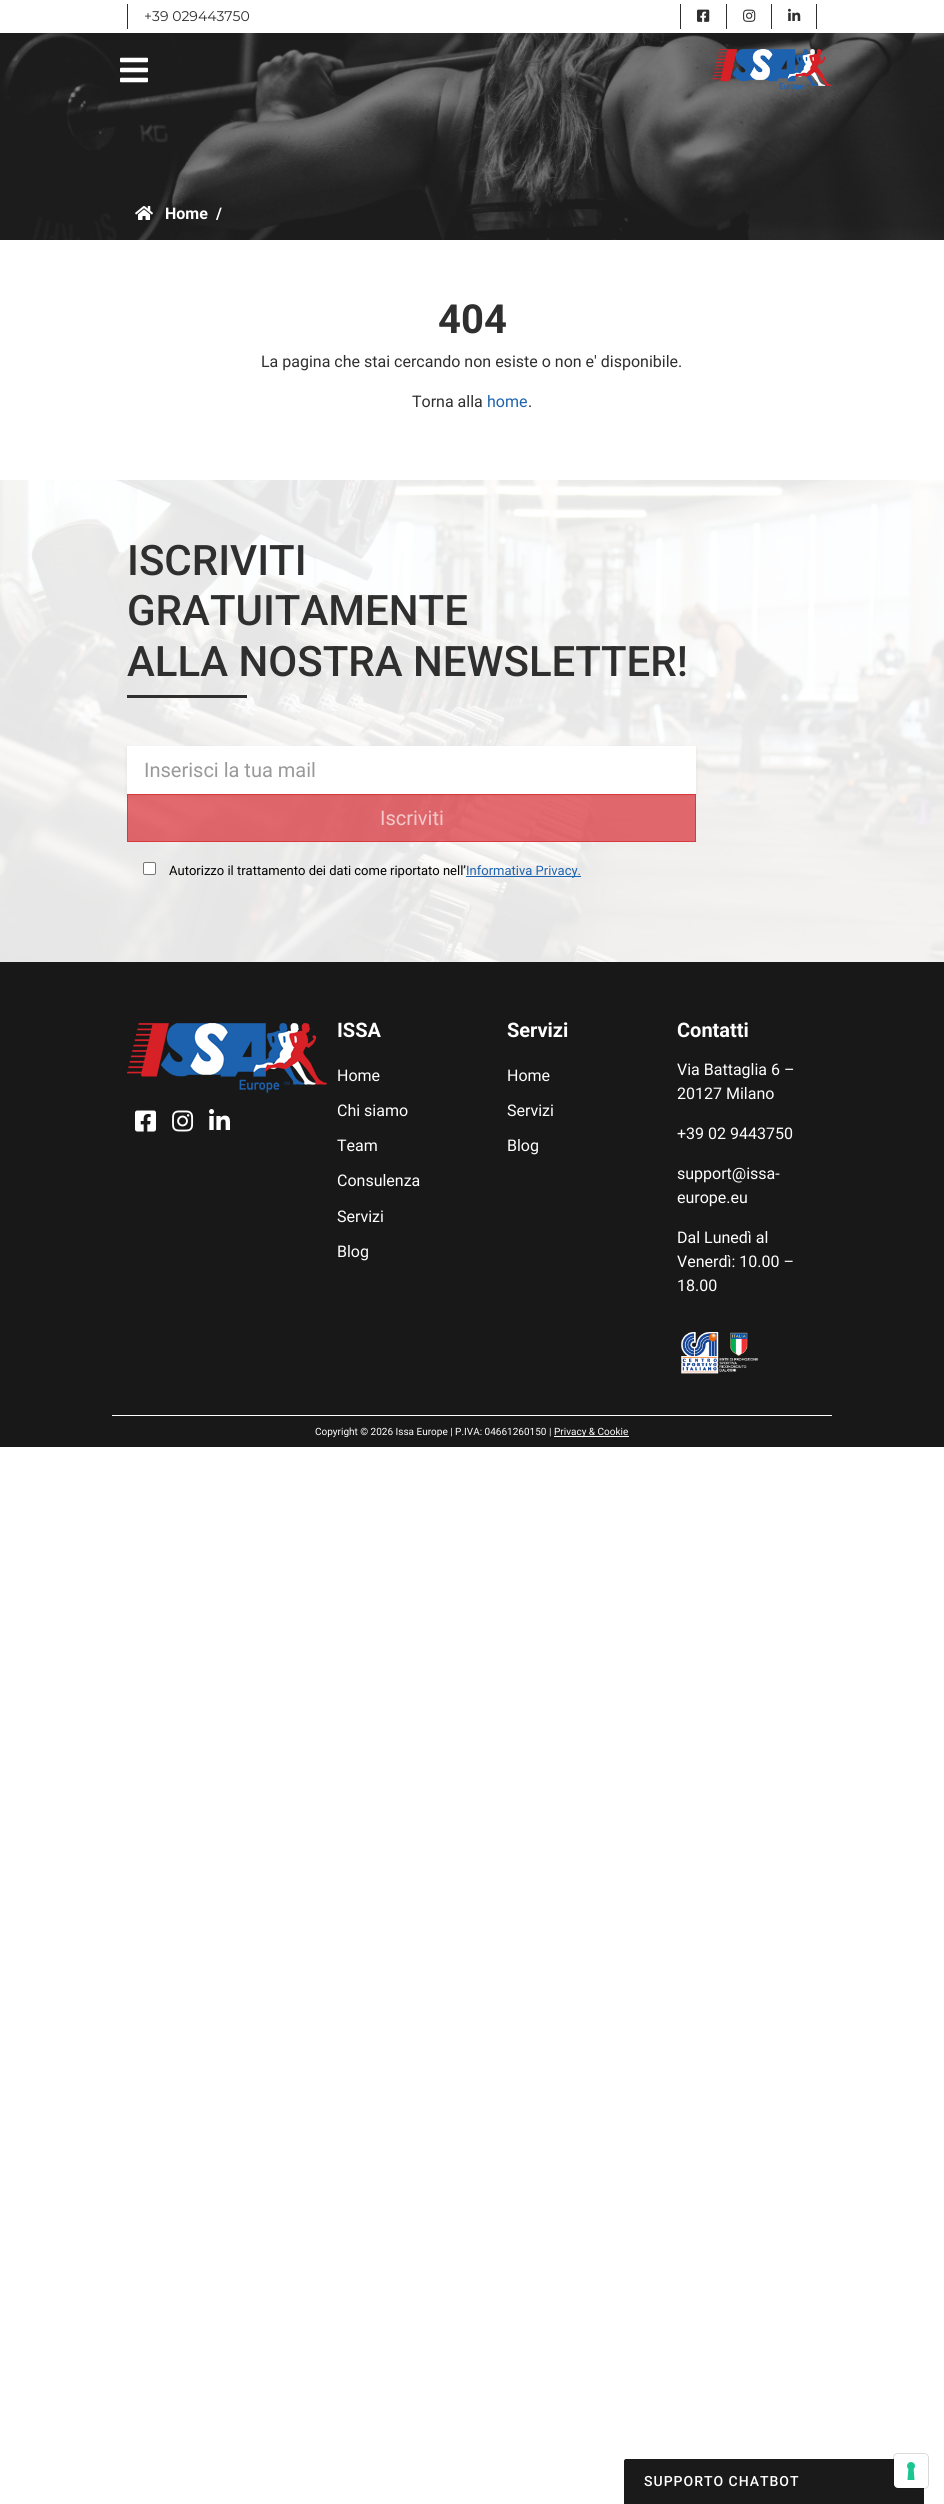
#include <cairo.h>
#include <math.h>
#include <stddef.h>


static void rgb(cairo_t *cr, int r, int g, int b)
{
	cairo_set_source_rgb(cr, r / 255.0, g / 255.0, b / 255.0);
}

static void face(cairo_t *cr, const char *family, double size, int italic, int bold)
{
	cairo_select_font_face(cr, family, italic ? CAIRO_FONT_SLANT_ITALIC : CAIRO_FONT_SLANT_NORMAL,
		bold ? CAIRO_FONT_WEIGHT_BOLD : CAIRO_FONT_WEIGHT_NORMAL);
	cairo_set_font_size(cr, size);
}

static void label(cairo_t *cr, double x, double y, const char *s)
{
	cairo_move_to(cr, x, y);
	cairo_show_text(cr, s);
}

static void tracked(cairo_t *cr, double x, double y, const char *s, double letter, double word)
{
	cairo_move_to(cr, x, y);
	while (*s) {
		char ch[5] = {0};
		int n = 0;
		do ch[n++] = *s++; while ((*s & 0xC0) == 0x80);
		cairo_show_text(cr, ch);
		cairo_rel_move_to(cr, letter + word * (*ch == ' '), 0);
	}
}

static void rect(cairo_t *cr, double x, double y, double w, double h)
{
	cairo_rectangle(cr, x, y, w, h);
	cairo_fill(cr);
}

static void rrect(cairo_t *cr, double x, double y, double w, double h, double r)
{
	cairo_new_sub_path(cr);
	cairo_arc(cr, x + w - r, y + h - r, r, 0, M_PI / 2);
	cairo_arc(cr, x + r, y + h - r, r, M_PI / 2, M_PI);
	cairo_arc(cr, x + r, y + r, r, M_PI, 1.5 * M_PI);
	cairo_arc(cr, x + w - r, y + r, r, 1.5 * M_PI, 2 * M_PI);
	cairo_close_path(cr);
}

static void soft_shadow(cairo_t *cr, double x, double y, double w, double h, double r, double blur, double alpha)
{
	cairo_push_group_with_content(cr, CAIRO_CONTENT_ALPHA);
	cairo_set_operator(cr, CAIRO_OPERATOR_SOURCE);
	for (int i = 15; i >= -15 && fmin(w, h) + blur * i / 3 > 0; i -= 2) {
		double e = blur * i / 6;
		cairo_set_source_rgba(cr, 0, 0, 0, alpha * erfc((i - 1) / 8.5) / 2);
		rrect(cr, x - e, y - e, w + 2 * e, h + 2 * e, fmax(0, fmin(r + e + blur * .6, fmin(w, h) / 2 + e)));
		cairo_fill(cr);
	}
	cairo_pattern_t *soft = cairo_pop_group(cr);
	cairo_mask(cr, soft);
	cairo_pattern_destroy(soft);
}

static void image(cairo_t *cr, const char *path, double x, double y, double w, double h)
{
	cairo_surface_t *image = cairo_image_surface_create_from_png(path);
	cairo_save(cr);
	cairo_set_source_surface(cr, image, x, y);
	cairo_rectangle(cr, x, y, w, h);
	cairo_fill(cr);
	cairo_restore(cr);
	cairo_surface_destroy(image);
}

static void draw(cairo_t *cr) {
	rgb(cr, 255, 255, 255);
	cairo_paint(cr);
	rgb(cr, 47, 47, 47);
	rect(cr, 127, 4, 1, 25);
	face(cr, "Montserrat", 14, 0, 0);
	label(cr, 144, 21, "+39 029443750");
	rect(cr, 816, 4, 1, 25);
	rect(cr, 680, 4, 1, 25);
	image(cr, "image0.png", 697, 9, 13, 13);
	rect(cr, 726, 4, 1, 25);
	image(cr, "image1.png", 743, 9, 13, 13);
	rect(cr, 771, 4, 1, 25);
	image(cr, "image2.png", 788, 8, 13, 13);
	rect(cr, 0, 33, 944, 207);
	image(cr, "image5.png", 0, 33, 944, 207);
	image(cr, "image3.png", 120, 57, 28, 26);
	image(cr, "image4.png", 712, 49, 120, 42);
	image(cr, "image6.png", 135, 206, 18, 14);
	face(cr, "Roboto", 16, 0, 1);
	rgb(cr, 255, 255, 255);
	label(cr, 165, 219, "Home");
	label(cr, 216, 219, "/");
	face(cr, "Roboto", 40, 0, 1);
	rgb(cr, 47, 47, 47);
	label(cr, 438, 333, "404");
	face(cr, "Roboto", 16, 0, 0);
	label(cr, 261, 367, "La pagina che stai cercando non esiste o non e' disponibile.");
	label(cr, 412, 407, "Torna alla");
	rgb(cr, 29, 98, 175);
	label(cr, 487, 407, "home");
	rgb(cr, 47, 47, 47);
	label(cr, 528, 407, ".");
	image(cr, "image7.png", 0, 480, 944, 482);
	face(cr, "Roboto Medium", 42, 0, 0);
	label(cr, 127, 575, "ISCRIVITI");
	label(cr, 127, 625, "GRATUITAMENTE");
	label(cr, 127, 676, "ALLA NOSTRA NEWSLETTER!");
	rect(cr, 127, 695, 120, 3);
	rgb(cr, 0, 0, 0);
	soft_shadow(cr, 127, 748, 569, 48, 0, 2, 0.07);
	rgb(cr, 255, 255, 255);
	cairo_rectangle(cr, 127.5, 746.5, 568, 47);
	cairo_fill_preserve(cr);
	cairo_set_line_width(cr, 1);
	cairo_stroke(cr);
	face(cr, "Roboto", 20, 0, 0);
	rgb(cr, 153, 153, 153);
	label(cr, 144, 777, "Inserisci la tua mail");
	cairo_set_source_rgba(cr, 0.847, 0.125, 0.153, 0.65);
	rect(cr, 127, 794, 569, 48);
	cairo_rectangle(cr, 127.5, 794.5, 568, 47);
	cairo_stroke(cr);
	rgb(cr, 243, 202, 203);
	label(cr, 380, 825, "Iscriviti");
	rgb(cr, 255, 255, 255);
	rrect(cr, 143.5, 862.5, 12, 12, 1.5);
	cairo_fill_preserve(cr);
	rgb(cr, 118, 118, 118);
	cairo_stroke(cr);
	face(cr, "Roboto", 13, 0, 0);
	rgb(cr, 0, 0, 0);
	label(cr, 169, 875, "Autorizzo il trattamento dei dati come riportato nell’");
	rgb(cr, 29, 98, 175);
	rect(cr, 466, 876, 115, 1);
	label(cr, 466, 875, "Informativa Privacy.");
	rgb(cr, 24, 24, 24);
	rect(cr, 0, 962, 944, 485);
	image(cr, "image8.png", 127, 1023, 200, 70);
	image(cr, "image9.png", 135, 1110, 21, 22);
	image(cr, "image10.png", 172, 1110, 22, 22);
	image(cr, "image11.png", 209, 1109, 21, 21);
	face(cr, "Roboto", 20, 0, 1);
	rgb(cr, 255, 255, 255);
	label(cr, 337, 1037, "ISSA");
	face(cr, "Roboto", 16, 0, 0);
	label(cr, 337, 1081, "Home");
	label(cr, 337, 1116, "Chi siamo");
	label(cr, 337, 1151, "Team");
	label(cr, 337, 1186, "Consulenza");
	label(cr, 337, 1222, "Servizi");
	label(cr, 337, 1257, "Blog");
	face(cr, "Roboto", 20, 0, 1);
	label(cr, 507, 1037, "Servizi");
	face(cr, "Roboto", 16, 0, 0);
	label(cr, 507, 1081, "Home");
	label(cr, 507, 1116, "Servizi");
	label(cr, 507, 1151, "Blog");
	face(cr, "Roboto", 20, 0, 1);
	label(cr, 677, 1037, "Contatti");
	face(cr, "Roboto", 16, 0, 0);
	label(cr, 677, 1075, "Via Battaglia 6 –");
	label(cr, 677, 1099, "20127 Milano");
	label(cr, 677, 1139, "+39 02 9443750");
	label(cr, 677, 1179, "support@issa-");
	label(cr, 677, 1203, "europe.eu");
	label(cr, 677, 1243, "Dal Lunedì al");
	label(cr, 677, 1267, "Venerdì: 10.00 –");
	label(cr, 677, 1291, "18.00");
	image(cr, "image12.png", 681, 1332, 78, 42);
	rect(cr, 112, 1415, 720, 1);
	face(cr, "Roboto", 10, 0, 0);
	label(cr, 315, 1435, "Copyright © 2026 Issa Europe | P.IVA: 04661260150 |");
	rect(cr, 554, 1436, 75, 1);
	label(cr, 554, 1435, "Privacy & Cookie");
	rgb(cr, 26, 26, 26);
	cairo_new_path(cr);
	cairo_move_to(cr, 626, 2459);
	cairo_line_to(cr, 922, 2459);
	cairo_curve_to(cr, 923, 2459, 924, 2460, 924, 2461);
	cairo_line_to(cr, 924, 2504);
	cairo_line_to(cr, 624, 2504);
	cairo_line_to(cr, 624, 2461);
	cairo_curve_to(cr, 624, 2460, 625, 2459, 626, 2459);
	cairo_close_path(cr);
	cairo_fill(cr);
	face(cr, "Roboto Medium", 14, 0, 0);
	rgb(cr, 255, 255, 255);
	tracked(cr, 644, 2486, "SUPPORTO CHATBOT", 1, 0);
	rrect(cr, 893.5, 2453.5, 35, 35, 4.5);
	cairo_set_source_rgba(cr, 0, 0, 0, 0.15);
	cairo_stroke(cr);
	rgb(cr, 255, 255, 255);
	rrect(cr, 894, 2454, 34, 34, 4);
	cairo_fill(cr);
	image(cr, "image13.png", 907, 2462, 8, 18);
}

int main(void) {
	cairo_surface_t *surface = cairo_image_surface_create(CAIRO_FORMAT_RGB24, 944, 2504);
	cairo_t *cr = cairo_create(surface);
	cairo_font_options_t *options = cairo_font_options_create();
	cairo_font_options_set_hint_metrics(options, CAIRO_HINT_METRICS_OFF);
	cairo_font_options_set_hint_style(options, CAIRO_HINT_STYLE_NONE);
	cairo_set_font_options(cr, options);
	cairo_set_miter_limit(cr, 4);
	draw(cr);
	cairo_surface_write_to_png(surface, "render.png");
	cairo_font_options_destroy(options);
	cairo_destroy(cr);
	cairo_surface_destroy(surface);
	return 0;
}
